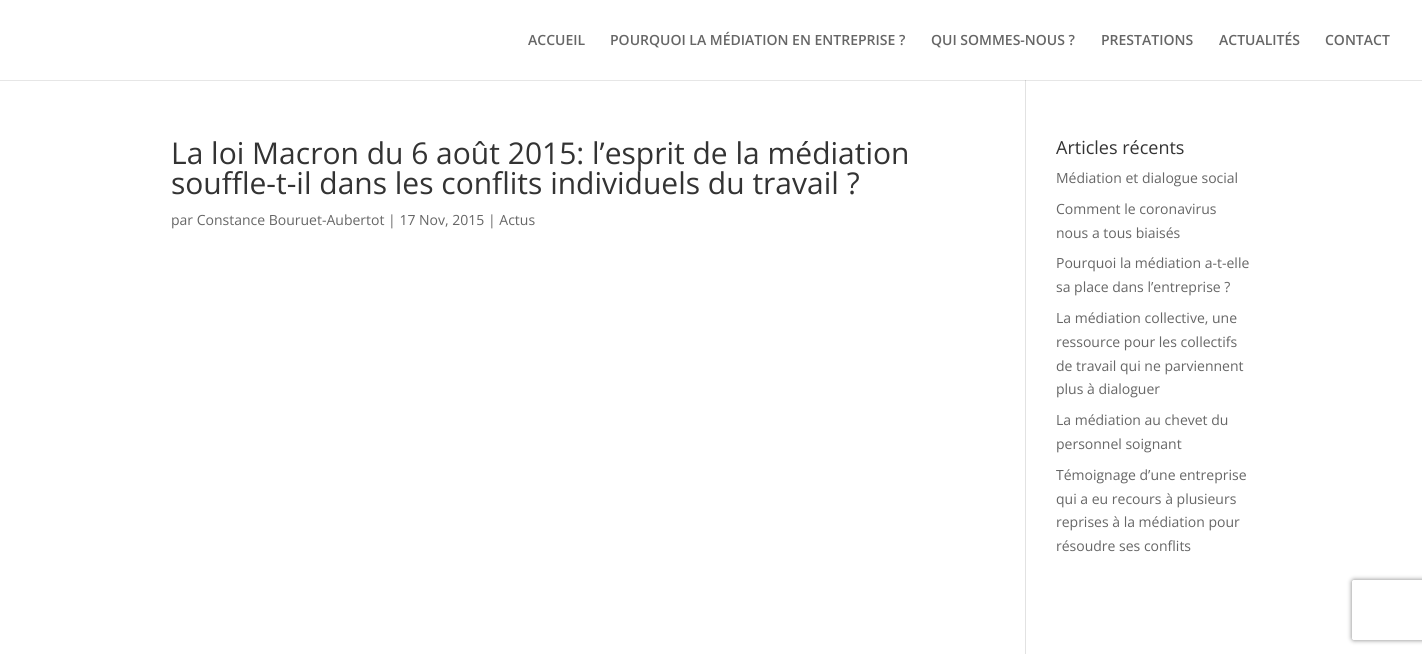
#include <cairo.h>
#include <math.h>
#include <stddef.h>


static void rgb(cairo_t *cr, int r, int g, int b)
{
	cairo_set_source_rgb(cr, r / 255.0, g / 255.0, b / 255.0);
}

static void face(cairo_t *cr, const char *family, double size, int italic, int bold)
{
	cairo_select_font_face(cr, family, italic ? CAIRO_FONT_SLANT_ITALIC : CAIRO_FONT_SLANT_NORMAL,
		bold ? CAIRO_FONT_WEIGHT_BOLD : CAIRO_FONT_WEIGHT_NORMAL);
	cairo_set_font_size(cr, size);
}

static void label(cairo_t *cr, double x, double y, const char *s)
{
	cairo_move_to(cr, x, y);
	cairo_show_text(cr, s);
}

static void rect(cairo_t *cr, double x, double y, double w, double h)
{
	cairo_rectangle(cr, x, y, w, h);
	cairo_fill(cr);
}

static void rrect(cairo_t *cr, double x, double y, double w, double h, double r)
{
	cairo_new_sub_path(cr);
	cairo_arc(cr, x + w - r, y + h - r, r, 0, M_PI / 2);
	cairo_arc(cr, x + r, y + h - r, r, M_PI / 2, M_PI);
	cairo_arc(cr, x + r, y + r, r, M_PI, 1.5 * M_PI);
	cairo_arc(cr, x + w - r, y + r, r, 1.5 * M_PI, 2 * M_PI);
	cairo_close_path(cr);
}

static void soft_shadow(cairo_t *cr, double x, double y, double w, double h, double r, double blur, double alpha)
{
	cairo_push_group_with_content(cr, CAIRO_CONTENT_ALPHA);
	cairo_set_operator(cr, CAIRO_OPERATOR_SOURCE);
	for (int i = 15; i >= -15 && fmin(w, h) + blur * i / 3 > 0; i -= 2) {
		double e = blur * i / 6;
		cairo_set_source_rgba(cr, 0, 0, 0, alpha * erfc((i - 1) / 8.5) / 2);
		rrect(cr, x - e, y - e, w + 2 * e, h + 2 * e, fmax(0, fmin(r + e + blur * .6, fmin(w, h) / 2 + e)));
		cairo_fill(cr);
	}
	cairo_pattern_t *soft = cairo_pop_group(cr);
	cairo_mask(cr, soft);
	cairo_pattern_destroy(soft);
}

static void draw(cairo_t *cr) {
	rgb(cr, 255, 255, 255);
	cairo_paint(cr);
	face(cr, "Open Sans SemiBold", 14, 0, 0);
	rgb(cr, 102, 102, 102);
	label(cr, 528, 45, "ACCUEIL");
	label(cr, 610, 45, "POURQUOI LA MÉDIATION EN ENTREPRISE ?");
	label(cr, 931, 45, "QUI SOMMES-NOUS ?");
	label(cr, 1101, 45, "PRESTATIONS");
	label(cr, 1219, 45, "ACTUALITÉS");
	label(cr, 1325, 45, "CONTACT");
	rgb(cr, 230, 230, 230);
	rect(cr, 0, 80, 1422, 1);
	rgb(cr, 226, 226, 226);
	rect(cr, 1025, 80, 1, 574);
	rgb(cr, 203, 203, 203);
	rect(cr, 1025, 80, 1, 1);
	face(cr, "Open Sans", 30, 0, 0);
	rgb(cr, 51, 51, 51);
	label(cr, 171, 164, "La loi Macron du 6 août 2015: l’esprit de la médiation");
	label(cr, 171, 194, "souffle-t-il dans les conflits individuels du travail ?");
	face(cr, "Open Sans", 14, 0, 0);
	rgb(cr, 102, 102, 102);
	label(cr, 171, 225, "par Constance Bouruet-Aubertot | 17 Nov, 2015 | Actus");
	face(cr, "Open Sans", 18, 0, 0);
	rgb(cr, 51, 51, 51);
	label(cr, 1056, 154, "Articles récents");
	face(cr, "Open Sans", 14, 0, 0);
	rgb(cr, 102, 102, 102);
	label(cr, 1056, 183, "Médiation et dialogue social");
	label(cr, 1056, 214, "Comment le coronavirus");
	label(cr, 1056, 238, "nous a tous biaisés");
	label(cr, 1056, 268, "Pourquoi la médiation a-t-elle");
	label(cr, 1056, 292, "sa place dans l’entreprise ?");
	label(cr, 1056, 323, "La médiation collective, une");
	label(cr, 1056, 347, "ressource pour les collectifs");
	label(cr, 1056, 371, "de travail qui ne parviennent");
	label(cr, 1056, 394, "plus à dialoguer");
	label(cr, 1056, 425, "La médiation au chevet du");
	label(cr, 1056, 449, "personnel soignant");
	label(cr, 1056, 480, "Témoignage d’une entreprise");
	label(cr, 1056, 504, "qui a eu recours à plusieurs");
	label(cr, 1056, 527, "reprises à la médiation pour");
	label(cr, 1056, 551, "résoudre ses conflits");
	cairo_save(cr);
	cairo_set_fill_rule(cr, CAIRO_FILL_RULE_EVEN_ODD);
	cairo_new_path(cr);
	cairo_move_to(cr, 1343, 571);
	cairo_line_to(cr, 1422, 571);
	cairo_line_to(cr, 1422, 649);
	cairo_line_to(cr, 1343, 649);
	cairo_close_path(cr);
	cairo_move_to(cr, 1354, 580);
	cairo_line_to(cr, 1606, 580);
	cairo_curve_to(cr, 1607, 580, 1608, 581, 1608, 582);
	cairo_line_to(cr, 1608, 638);
	cairo_curve_to(cr, 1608, 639, 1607, 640, 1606, 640);
	cairo_line_to(cr, 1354, 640);
	cairo_curve_to(cr, 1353, 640, 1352, 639, 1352, 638);
	cairo_line_to(cr, 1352, 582);
	cairo_curve_to(cr, 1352, 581, 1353, 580, 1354, 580);
	cairo_close_path(cr);
	cairo_clip(cr);
	rgb(cr, 128, 128, 128);
	soft_shadow(cr, 1352, 580, 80, 60, 2, 2.5, 1);
	cairo_restore(cr);
}

int main(void) {
	cairo_surface_t *surface = cairo_image_surface_create(CAIRO_FORMAT_RGB24, 1422, 654);
	cairo_t *cr = cairo_create(surface);
	cairo_font_options_t *options = cairo_font_options_create();
	cairo_font_options_set_hint_metrics(options, CAIRO_HINT_METRICS_OFF);
	cairo_font_options_set_hint_style(options, CAIRO_HINT_STYLE_NONE);
	cairo_set_font_options(cr, options);
	cairo_set_miter_limit(cr, 4);
	draw(cr);
	cairo_surface_write_to_png(surface, "render.png");
	cairo_font_options_destroy(options);
	cairo_destroy(cr);
	cairo_surface_destroy(surface);
	return 0;
}
